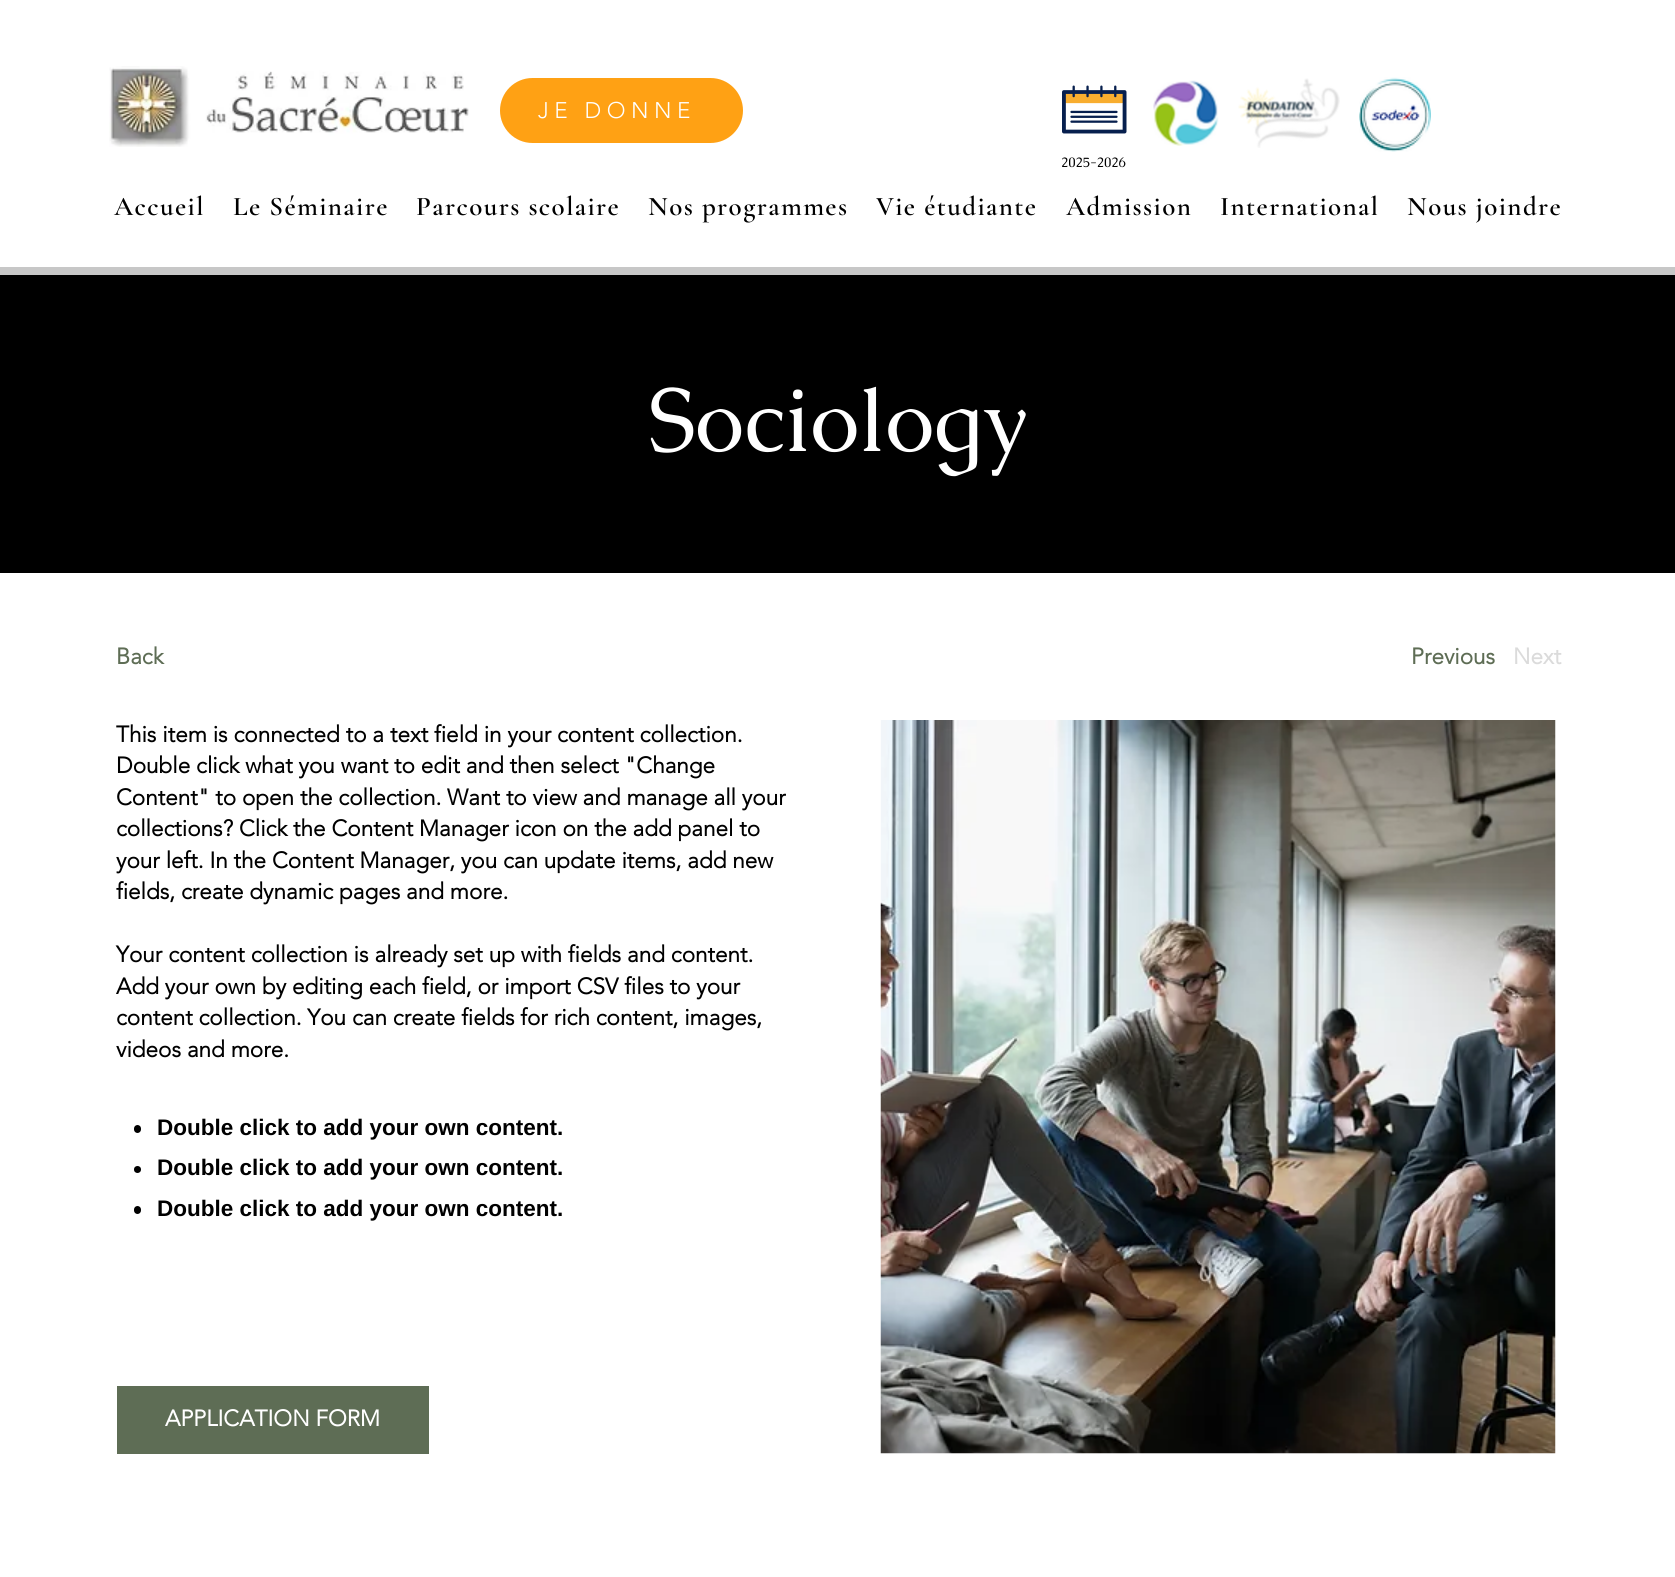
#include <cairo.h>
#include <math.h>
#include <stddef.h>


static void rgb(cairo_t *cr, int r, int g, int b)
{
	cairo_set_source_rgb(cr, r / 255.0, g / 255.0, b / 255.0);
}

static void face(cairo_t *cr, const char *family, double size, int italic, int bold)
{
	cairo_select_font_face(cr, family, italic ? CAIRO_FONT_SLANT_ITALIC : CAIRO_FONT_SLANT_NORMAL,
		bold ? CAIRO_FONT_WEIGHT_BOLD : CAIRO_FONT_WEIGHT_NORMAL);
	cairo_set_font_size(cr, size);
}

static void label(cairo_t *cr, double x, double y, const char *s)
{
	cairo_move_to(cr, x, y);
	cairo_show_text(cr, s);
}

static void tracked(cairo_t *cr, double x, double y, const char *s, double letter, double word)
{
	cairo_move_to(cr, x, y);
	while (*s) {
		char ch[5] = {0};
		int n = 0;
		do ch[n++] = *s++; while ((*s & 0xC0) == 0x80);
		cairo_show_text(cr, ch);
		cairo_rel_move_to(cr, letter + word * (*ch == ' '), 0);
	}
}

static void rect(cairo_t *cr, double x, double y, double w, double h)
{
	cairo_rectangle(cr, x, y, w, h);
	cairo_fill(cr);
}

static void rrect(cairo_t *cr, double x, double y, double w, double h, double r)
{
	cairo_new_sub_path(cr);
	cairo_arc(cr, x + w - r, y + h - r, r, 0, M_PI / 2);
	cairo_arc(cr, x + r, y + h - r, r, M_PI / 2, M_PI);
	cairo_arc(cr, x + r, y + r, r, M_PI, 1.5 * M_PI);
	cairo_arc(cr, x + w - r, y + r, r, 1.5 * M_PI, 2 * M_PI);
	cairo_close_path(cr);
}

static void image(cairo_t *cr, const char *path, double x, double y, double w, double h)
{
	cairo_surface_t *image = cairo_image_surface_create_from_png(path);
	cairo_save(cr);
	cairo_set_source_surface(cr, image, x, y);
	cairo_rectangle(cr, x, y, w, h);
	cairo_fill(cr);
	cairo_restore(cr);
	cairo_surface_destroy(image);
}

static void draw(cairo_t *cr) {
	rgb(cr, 255, 255, 255);
	cairo_paint(cr);
	image(cr, "image0.png", 109, 66, 360, 81);
	rgb(cr, 255, 161, 20);
	rrect(cr, 500, 78, 243, 65, 32.5);
	cairo_fill(cr);
	face(cr, "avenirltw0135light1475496 Light", 22.5, 0, 0);
	rgb(cr, 255, 255, 255);
	tracked(cr, 538, 118, "JE DONNE", 5.5, 0);
	image(cr, "image1.png", 1062, 85, 65, 49);
	image(cr, "image2.png", 1153, 80, 66, 66);
	image(cr, "image3.png", 1238, 78, 102, 70);
	image(cr, "image4.png", 1359, 77, 72, 75);
	face(cr, "Caudex", 13.5, 0, 0);
	rgb(cr, 0, 0, 0);
	label(cr, 1061, 167, "2025-2026");
	face(cr, "Cormorant Garamond SemiBold", 27, 0, 0);
	tracked(cr, 114, 215, "Accueil", 1.4, 0);
	tracked(cr, 233, 215, "Le Séminaire", 1.4, 0);
	tracked(cr, 416, 215, "Parcours scolaire", 1.4, 0);
	tracked(cr, 648, 215, "Nos programmes", 1.4, 0);
	tracked(cr, 876, 215, "Vie étudiante", 1.4, 0);
	tracked(cr, 1066, 215, "Admission", 1.4, 0);
	tracked(cr, 1220, 215, "International", 1.4, 0);
	tracked(cr, 1407, 215, "Nous joindre", 1.4, 0);
	rgb(cr, 199, 199, 199);
	rect(cr, 0, 267, 1675, 8);
	rgb(cr, 0, 0, 0);
	rect(cr, 0, 275, 1675, 298);
	face(cr, "Caudex", 90, 0, 0);
	rgb(cr, 255, 255, 255);
	label(cr, 648, 451, "Sociology");
	face(cr, "avenirltw0135light1475496", 22.5, 0, 1);
	rgb(cr, 94, 109, 85);
	label(cr, 116, 664, "Back");
	label(cr, 1411, 664, "Previous");
	rgb(cr, 219, 219, 219);
	label(cr, 1513, 664, "Next");
	rgb(cr, 0, 0, 0);
	label(cr, 116, 742, "This item is connected to a text field in your content collection.");
	label(cr, 116, 773, "Double click what you want to edit and then select \"Change");
	label(cr, 116, 805, "Content\" to open the collection. Want to view and manage all your");
	label(cr, 116, 836, "collections? Click the Content Manager icon on the add panel to");
	label(cr, 116, 868, "your left. In the Content Manager, you can update items, add new");
	label(cr, 116, 899, "fields, create dynamic pages and more.");
	label(cr, 116, 962, "Your content collection is already set up with fields and content.");
	label(cr, 116, 994, "Add your own by editing each field, or import CSV files to your");
	label(cr, 116, 1025, "content collection. You can create fields for rich content, images,");
	label(cr, 116, 1057, "videos and more.");
	rrect(cr, 134, 1125, 7, 8, 3.5);
	cairo_fill(cr);
	face(cr, "Liberation Sans", 22.5, 0, 1);
	label(cr, 157, 1135, "Double click to add your own content.");
	cairo_new_path(cr);
	cairo_arc(cr, 137.5, 1169.5, 3.5, 0, 2 * M_PI);
	cairo_fill(cr);
	label(cr, 157, 1175, "Double click to add your own content.");
	rrect(cr, 134, 1206, 7, 8, 3.5);
	cairo_fill(cr);
	label(cr, 157, 1216, "Double click to add your own content.");
	image(cr, "image5.png", 880, 720, 676, 734);
	rgb(cr, 94, 109, 85);
	rect(cr, 117, 1386, 312, 68);
	face(cr, "avenirltw0135light1475496", 22.5, 0, 1);
	rgb(cr, 255, 255, 255);
	label(cr, 165, 1426, "APPLICATION FORM");
}

int main(void) {
	cairo_surface_t *surface = cairo_image_surface_create(CAIRO_FORMAT_RGB24, 1675, 1577);
	cairo_t *cr = cairo_create(surface);
	cairo_font_options_t *options = cairo_font_options_create();
	cairo_font_options_set_hint_metrics(options, CAIRO_HINT_METRICS_OFF);
	cairo_font_options_set_hint_style(options, CAIRO_HINT_STYLE_NONE);
	cairo_set_font_options(cr, options);
	cairo_set_miter_limit(cr, 4);
	draw(cr);
	cairo_surface_write_to_png(surface, "render.png");
	cairo_font_options_destroy(options);
	cairo_destroy(cr);
	cairo_surface_destroy(surface);
	return 0;
}
